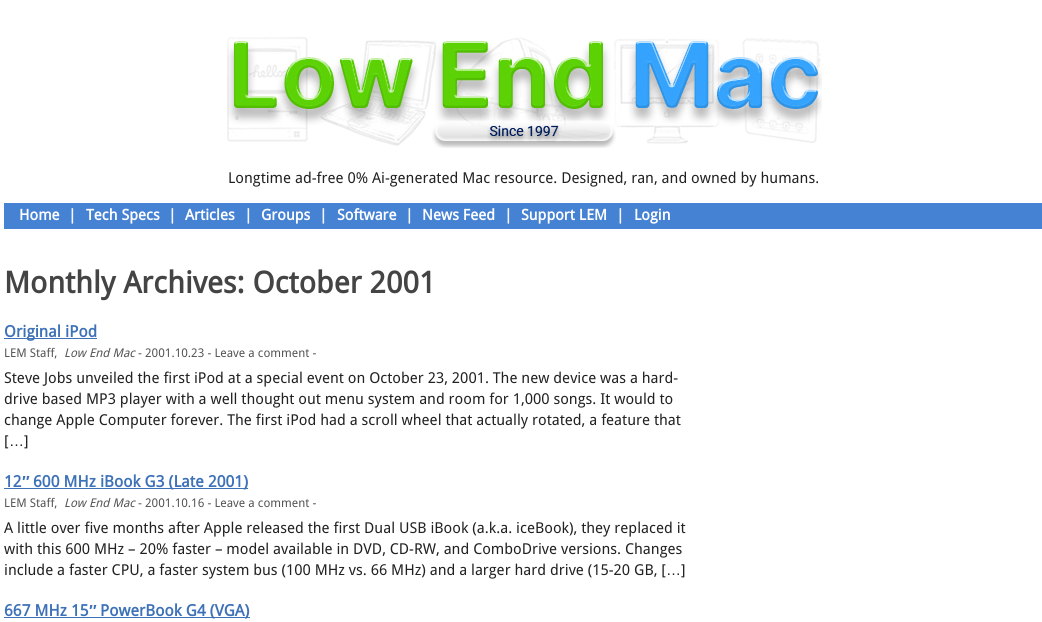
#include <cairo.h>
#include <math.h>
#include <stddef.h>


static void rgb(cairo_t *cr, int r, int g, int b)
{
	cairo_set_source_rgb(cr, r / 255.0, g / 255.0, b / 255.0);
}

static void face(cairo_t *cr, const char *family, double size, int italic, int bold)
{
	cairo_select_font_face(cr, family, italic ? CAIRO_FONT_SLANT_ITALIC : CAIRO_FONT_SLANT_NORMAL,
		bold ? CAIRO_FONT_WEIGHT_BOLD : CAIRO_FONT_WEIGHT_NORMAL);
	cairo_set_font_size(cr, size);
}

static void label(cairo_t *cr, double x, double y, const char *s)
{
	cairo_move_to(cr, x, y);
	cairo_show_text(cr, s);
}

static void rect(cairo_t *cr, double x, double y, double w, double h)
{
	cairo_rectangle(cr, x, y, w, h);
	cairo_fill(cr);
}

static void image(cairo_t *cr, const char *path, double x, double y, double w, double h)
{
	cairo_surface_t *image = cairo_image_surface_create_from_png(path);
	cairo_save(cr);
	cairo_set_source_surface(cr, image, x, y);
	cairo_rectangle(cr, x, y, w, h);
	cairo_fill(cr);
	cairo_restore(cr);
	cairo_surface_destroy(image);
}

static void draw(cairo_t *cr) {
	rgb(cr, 255, 255, 255);
	cairo_paint(cr);
	image(cr, "image0.png", 227, 37, 595, 111);
	face(cr, "Droid Sans", 15, 0, 0);
	rgb(cr, 34, 34, 34);
	label(cr, 228, 183, "Longtime ad-free 0% Ai-generated Mac resource. Designed, ran, and owned by humans.");
	rgb(cr, 70, 130, 212);
	rect(cr, 4, 203, 1038, 26);
	face(cr, "Droid Sans", 15, 0, 1);
	rgb(cr, 255, 255, 255);
	label(cr, 19, 220, "Home");
	rgb(cr, 246, 246, 246);
	label(cr, 68, 220, "|");
	rgb(cr, 255, 255, 255);
	label(cr, 86, 220, "Tech Specs");
	rgb(cr, 246, 246, 246);
	label(cr, 168, 220, "|");
	rgb(cr, 255, 255, 255);
	label(cr, 185, 220, "Articles");
	rgb(cr, 246, 246, 246);
	label(cr, 244, 220, "|");
	rgb(cr, 255, 255, 255);
	label(cr, 261, 220, "Groups");
	rgb(cr, 246, 246, 246);
	label(cr, 319, 220, "|");
	rgb(cr, 255, 255, 255);
	label(cr, 337, 220, "Software");
	rgb(cr, 246, 246, 246);
	label(cr, 405, 220, "|");
	rgb(cr, 255, 255, 255);
	label(cr, 422, 220, "News Feed");
	rgb(cr, 246, 246, 246);
	label(cr, 504, 220, "|");
	rgb(cr, 255, 255, 255);
	label(cr, 521, 220, "Support LEM");
	rgb(cr, 246, 246, 246);
	label(cr, 616, 220, "|");
	rgb(cr, 255, 255, 255);
	label(cr, 634, 220, "Login");
	face(cr, "Droid Sans", 30, 0, 1);
	rgb(cr, 68, 68, 68);
	label(cr, 4, 293, "Monthly Archives: October 2001");
	rgb(cr, 61, 113, 184);
	rect(cr, 4, 338, 93, 1);
	face(cr, "Droid Sans", 16, 0, 1);
	label(cr, 4, 337, "Original iPod");
	face(cr, "Droid Sans", 12, 0, 0);
	rgb(cr, 85, 85, 85);
	label(cr, 4, 357, "LEM Staff,");
	face(cr, "Droid Sans", 12, 1, 0);
	label(cr, 64, 357, "Low End Mac");
	face(cr, "Droid Sans", 12, 0, 0);
	label(cr, 138, 357, "- 2001.10.23 - Leave a comment -");
	face(cr, "Droid Sans", 15, 0, 0);
	rgb(cr, 34, 34, 34);
	label(cr, 4, 383, "Steve Jobs unveiled the first iPod at a special event on October 23, 2001. The new device was a hard-");
	label(cr, 4, 404, "drive based MP3 player with a well thought out menu system and room for 1,000 songs. It would to");
	label(cr, 4, 425, "change Apple Computer forever. The first iPod had a scroll wheel that actually rotated, a feature that");
	label(cr, 4, 446, "[");
	face(cr, "Liberation Sans", 15, 0, 0);
	label(cr, 9, 446, "…");
	face(cr, "Droid Sans", 15, 0, 0);
	label(cr, 24, 446, "]");
	face(cr, "Droid Sans", 16, 0, 1);
	rgb(cr, 61, 113, 184);
	label(cr, 4, 487, "12");
	face(cr, "Liberation Sans", 16, 0, 1);
	label(cr, 22, 487, "″");
	rect(cr, 4, 488, 244, 1);
	face(cr, "Droid Sans", 16, 0, 1);
	label(cr, 33, 487, "600 MHz iBook G3 (Late 2001)");
	face(cr, "Droid Sans", 12, 0, 0);
	rgb(cr, 85, 85, 85);
	label(cr, 4, 507, "LEM Staff,");
	face(cr, "Droid Sans", 12, 1, 0);
	label(cr, 64, 507, "Low End Mac");
	face(cr, "Droid Sans", 12, 0, 0);
	label(cr, 138, 507, "- 2001.10.16 - Leave a comment -");
	face(cr, "Droid Sans", 15, 0, 0);
	rgb(cr, 34, 34, 34);
	label(cr, 4, 533, "A little over five months after Apple released the first Dual USB iBook (a.k.a. iceBook), they replaced it");
	label(cr, 4, 554, "with this 600 MHz – 20% faster – model available in DVD, CD-RW, and ComboDrive versions. Changes");
	label(cr, 4, 575, "include a faster CPU, a faster system bus (100 MHz vs. 66 MHz) and a larger hard drive (15-20 GB, [");
	face(cr, "Liberation Sans", 15, 0, 0);
	label(cr, 666, 575, "…");
	face(cr, "Droid Sans", 15, 0, 0);
	label(cr, 681, 575, "]");
	face(cr, "Droid Sans", 16, 0, 1);
	rgb(cr, 61, 113, 184);
	label(cr, 4, 616, "667 MHz 15");
	face(cr, "Liberation Sans", 16, 0, 1);
	label(cr, 89, 616, "″");
	rect(cr, 4, 617, 246, 1);
	face(cr, "Droid Sans", 16, 0, 1);
	label(cr, 100, 616, "PowerBook G4 (VGA)");
}

int main(void) {
	cairo_surface_t *surface = cairo_image_surface_create(CAIRO_FORMAT_RGB24, 1042, 622);
	cairo_t *cr = cairo_create(surface);
	cairo_font_options_t *options = cairo_font_options_create();
	cairo_font_options_set_hint_metrics(options, CAIRO_HINT_METRICS_OFF);
	cairo_font_options_set_hint_style(options, CAIRO_HINT_STYLE_NONE);
	cairo_set_font_options(cr, options);
	cairo_set_miter_limit(cr, 4);
	draw(cr);
	cairo_surface_write_to_png(surface, "render.png");
	cairo_font_options_destroy(options);
	cairo_destroy(cr);
	cairo_surface_destroy(surface);
	return 0;
}
